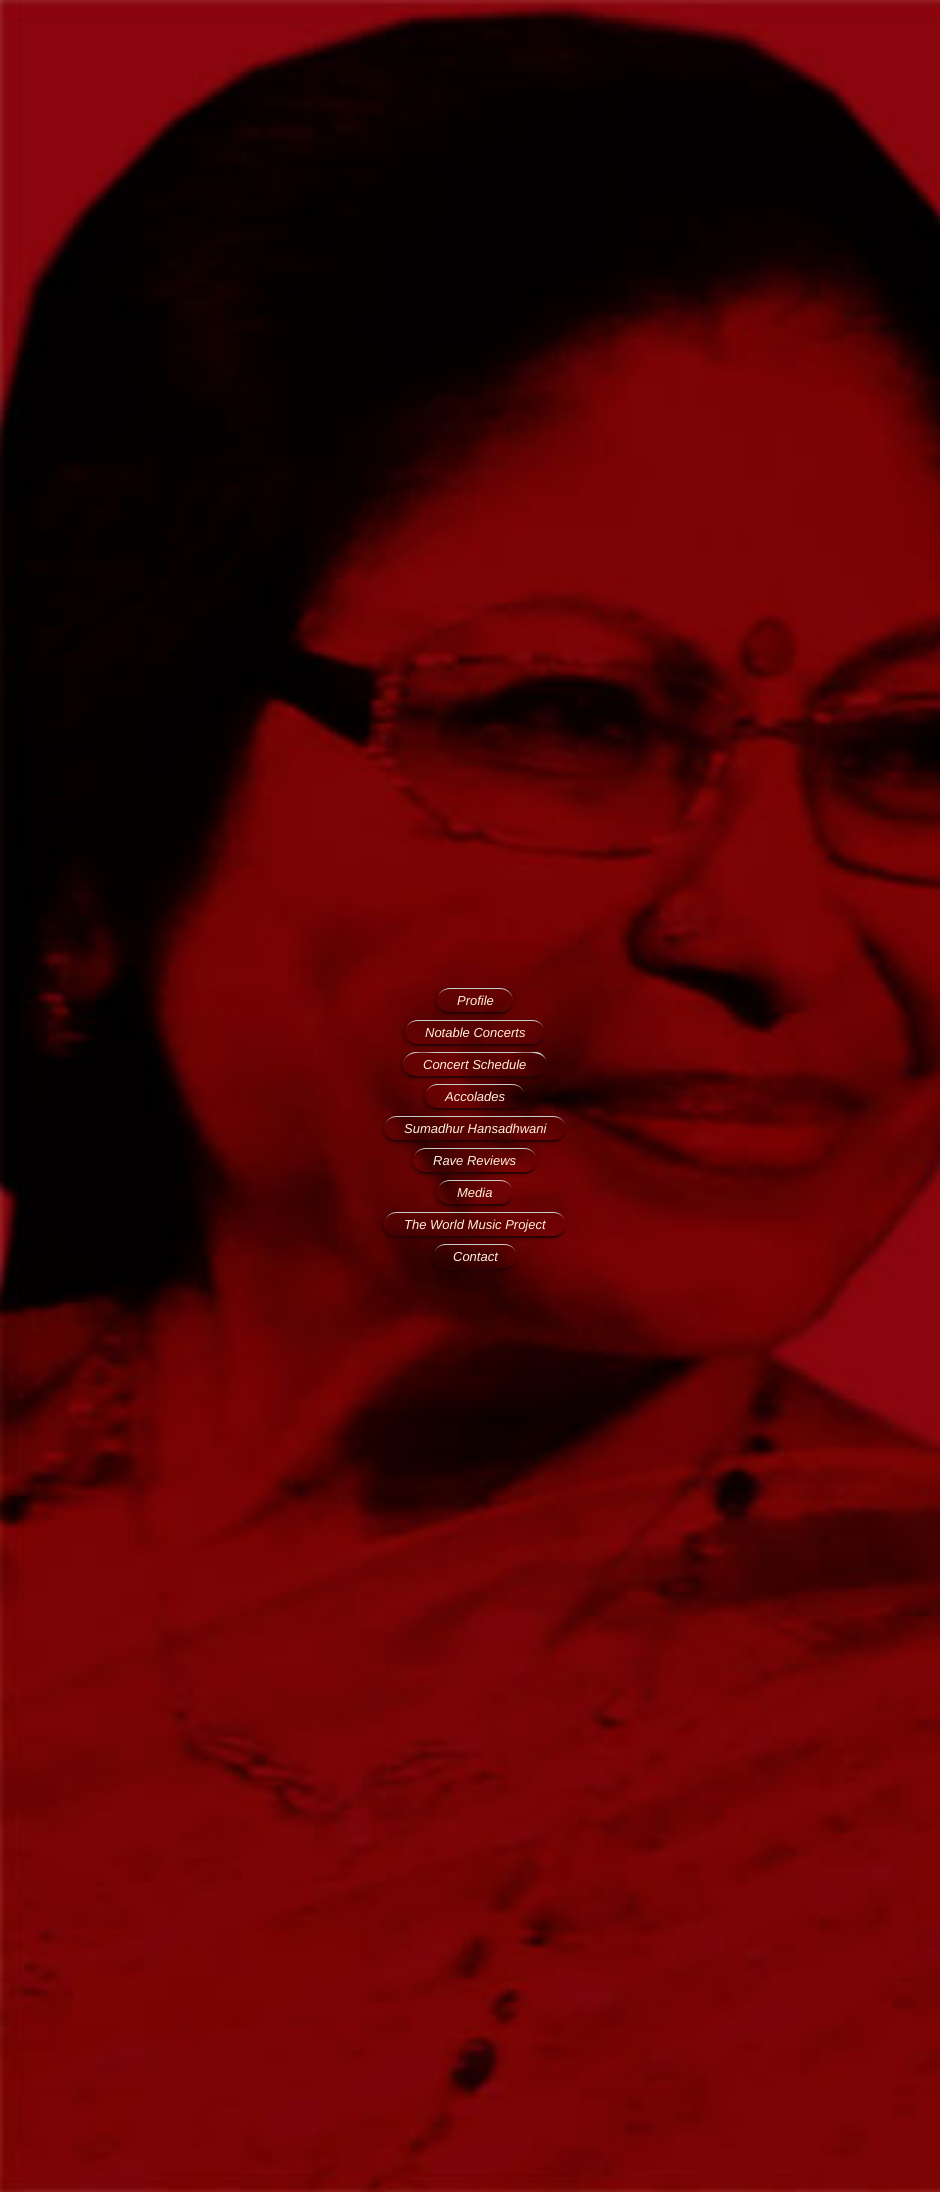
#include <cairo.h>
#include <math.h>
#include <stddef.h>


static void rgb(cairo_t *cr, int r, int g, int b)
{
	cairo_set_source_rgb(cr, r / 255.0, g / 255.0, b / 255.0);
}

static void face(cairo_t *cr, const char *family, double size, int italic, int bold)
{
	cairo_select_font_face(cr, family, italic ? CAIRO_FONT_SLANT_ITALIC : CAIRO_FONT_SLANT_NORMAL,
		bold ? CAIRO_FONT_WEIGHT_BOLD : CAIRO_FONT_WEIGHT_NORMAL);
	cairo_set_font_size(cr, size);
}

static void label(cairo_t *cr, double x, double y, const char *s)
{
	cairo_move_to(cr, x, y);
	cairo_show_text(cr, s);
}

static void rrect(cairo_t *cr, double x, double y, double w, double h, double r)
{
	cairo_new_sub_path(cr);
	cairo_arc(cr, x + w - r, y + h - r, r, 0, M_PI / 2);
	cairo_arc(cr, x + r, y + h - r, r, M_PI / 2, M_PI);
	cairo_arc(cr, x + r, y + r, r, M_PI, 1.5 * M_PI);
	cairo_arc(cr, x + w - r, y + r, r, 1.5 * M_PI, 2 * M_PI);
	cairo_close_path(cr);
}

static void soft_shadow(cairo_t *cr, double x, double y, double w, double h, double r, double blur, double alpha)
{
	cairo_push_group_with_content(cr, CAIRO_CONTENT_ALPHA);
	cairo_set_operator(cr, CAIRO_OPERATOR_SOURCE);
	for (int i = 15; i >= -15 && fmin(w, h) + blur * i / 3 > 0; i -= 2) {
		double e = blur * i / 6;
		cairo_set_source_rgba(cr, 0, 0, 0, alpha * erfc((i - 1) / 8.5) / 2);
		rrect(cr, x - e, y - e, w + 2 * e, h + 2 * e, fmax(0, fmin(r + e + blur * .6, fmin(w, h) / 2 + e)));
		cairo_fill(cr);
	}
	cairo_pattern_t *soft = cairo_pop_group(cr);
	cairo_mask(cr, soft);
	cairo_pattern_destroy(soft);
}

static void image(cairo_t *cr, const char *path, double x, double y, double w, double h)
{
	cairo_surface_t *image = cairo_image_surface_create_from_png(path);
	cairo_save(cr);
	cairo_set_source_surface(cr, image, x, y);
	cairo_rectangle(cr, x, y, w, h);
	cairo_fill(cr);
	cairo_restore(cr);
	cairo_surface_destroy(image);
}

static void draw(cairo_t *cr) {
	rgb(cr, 255, 255, 255);
	cairo_paint(cr);
	image(cr, "image0.png", 0, 0, 940, 2192);
	cairo_save(cr);
	cairo_set_fill_rule(cr, CAIRO_FILL_RULE_EVEN_ODD);
	cairo_new_path(cr);
	cairo_move_to(cr, 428, 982);
	cairo_line_to(cr, 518, 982);
	cairo_line_to(cr, 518, 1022);
	cairo_line_to(cr, 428, 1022);
	cairo_close_path(cr);
	cairo_move_to(cr, 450, 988);
	cairo_line_to(cr, 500, 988);
	cairo_curve_to(cr, 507, 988, 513, 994, 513, 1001);
	cairo_curve_to(cr, 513, 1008, 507, 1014, 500, 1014);
	cairo_line_to(cr, 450, 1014);
	cairo_curve_to(cr, 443, 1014, 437, 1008, 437, 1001);
	cairo_curve_to(cr, 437, 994, 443, 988, 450, 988);
	cairo_close_path(cr);
	cairo_clip(cr);
	rgb(cr, 0, 0, 0);
	soft_shadow(cr, 435, 989, 76, 26, 13, 2, 0.3);
	cairo_restore(cr);
	rgb(cr, 204, 204, 204);
	cairo_new_path(cr);
	cairo_move_to(cr, 450, 988);
	cairo_curve_to(cr, 443, 988, 437, 994, 437, 1000);
	cairo_curve_to(cr, 437, 994, 443, 989, 450, 989);
	cairo_line_to(cr, 500, 989);
	cairo_curve_to(cr, 507, 989, 512, 994, 513, 1000);
	cairo_curve_to(cr, 512, 993, 507, 988, 500, 988);
	cairo_close_path(cr);
	cairo_fill(cr);
	rgb(cr, 41, 2, 4);
	cairo_new_path(cr);
	cairo_move_to(cr, 500, 1014);
	cairo_curve_to(cr, 507, 1014, 513, 1008, 513, 1001);
	cairo_curve_to(cr, 513, 1007, 507, 1012, 500, 1012);
	cairo_line_to(cr, 450, 1012);
	cairo_curve_to(cr, 443, 1012, 437, 1007, 437, 1001);
	cairo_curve_to(cr, 437, 1008, 443, 1014, 450, 1014);
	cairo_close_path(cr);
	cairo_fill(cr);
	face(cr, "Liberation Sans", 13, 1, 0);
	rgb(cr, 255, 240, 218);
	label(cr, 457, 1005, "Profile");
	cairo_save(cr);
	cairo_set_fill_rule(cr, CAIRO_FILL_RULE_EVEN_ODD);
	cairo_new_path(cr);
	cairo_move_to(cr, 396, 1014);
	cairo_line_to(cr, 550, 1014);
	cairo_line_to(cr, 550, 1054);
	cairo_line_to(cr, 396, 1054);
	cairo_close_path(cr);
	cairo_move_to(cr, 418, 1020);
	cairo_line_to(cr, 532, 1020);
	cairo_curve_to(cr, 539, 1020, 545, 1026, 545, 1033);
	cairo_curve_to(cr, 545, 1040, 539, 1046, 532, 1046);
	cairo_line_to(cr, 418, 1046);
	cairo_curve_to(cr, 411, 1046, 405, 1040, 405, 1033);
	cairo_curve_to(cr, 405, 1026, 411, 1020, 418, 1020);
	cairo_close_path(cr);
	cairo_clip(cr);
	rgb(cr, 0, 0, 0);
	soft_shadow(cr, 403, 1021, 140, 26, 13, 2, 0.3);
	cairo_restore(cr);
	rgb(cr, 204, 204, 204);
	cairo_new_path(cr);
	cairo_move_to(cr, 418, 1020);
	cairo_curve_to(cr, 411, 1020, 406, 1025, 405, 1032);
	cairo_curve_to(cr, 406, 1025, 411, 1021, 418, 1021);
	cairo_line_to(cr, 532, 1021);
	cairo_curve_to(cr, 539, 1021, 544, 1025, 545, 1032);
	cairo_curve_to(cr, 544, 1025, 539, 1020, 532, 1020);
	cairo_close_path(cr);
	cairo_fill(cr);
	rgb(cr, 41, 2, 4);
	cairo_new_path(cr);
	cairo_move_to(cr, 532, 1046);
	cairo_curve_to(cr, 539, 1046, 545, 1040, 545, 1033);
	cairo_curve_to(cr, 545, 1039, 539, 1044, 532, 1044);
	cairo_line_to(cr, 418, 1044);
	cairo_curve_to(cr, 411, 1044, 405, 1039, 405, 1033);
	cairo_curve_to(cr, 405, 1040, 411, 1046, 418, 1046);
	cairo_close_path(cr);
	cairo_fill(cr);
	rgb(cr, 255, 240, 218);
	label(cr, 425, 1037, "Notable Concerts");
	cairo_save(cr);
	cairo_set_fill_rule(cr, CAIRO_FILL_RULE_EVEN_ODD);
	cairo_new_path(cr);
	cairo_move_to(cr, 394, 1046);
	cairo_line_to(cr, 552, 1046);
	cairo_line_to(cr, 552, 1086);
	cairo_line_to(cr, 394, 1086);
	cairo_close_path(cr);
	cairo_move_to(cr, 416, 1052);
	cairo_line_to(cr, 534, 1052);
	cairo_curve_to(cr, 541, 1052, 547, 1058, 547, 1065);
	cairo_curve_to(cr, 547, 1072, 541, 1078, 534, 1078);
	cairo_line_to(cr, 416, 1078);
	cairo_curve_to(cr, 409, 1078, 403, 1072, 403, 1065);
	cairo_curve_to(cr, 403, 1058, 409, 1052, 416, 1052);
	cairo_close_path(cr);
	cairo_clip(cr);
	rgb(cr, 0, 0, 0);
	soft_shadow(cr, 401, 1053, 144, 26, 13, 2, 0.3);
	cairo_restore(cr);
	rgb(cr, 204, 204, 204);
	cairo_new_path(cr);
	cairo_move_to(cr, 416, 1052);
	cairo_curve_to(cr, 409, 1052, 403, 1058, 403, 1065);
	cairo_curve_to(cr, 404, 1049, 425, 1053, 436, 1053);
	cairo_line_to(cr, 514, 1053);
	cairo_curve_to(cr, 523, 1053, 547, 1049, 547, 1065);
	cairo_curve_to(cr, 547, 1059, 543, 1053, 537, 1052);
	cairo_close_path(cr);
	cairo_fill(cr);
	rgb(cr, 41, 2, 4);
	cairo_new_path(cr);
	cairo_move_to(cr, 413, 1078);
	cairo_line_to(cr, 515, 1078);
	cairo_curve_to(cr, 526, 1078, 547, 1082, 547, 1065);
	cairo_curve_to(cr, 547, 1080, 521, 1076, 514, 1076);
	cairo_line_to(cr, 436, 1076);
	cairo_curve_to(cr, 430, 1076, 402, 1080, 403, 1065);
	cairo_curve_to(cr, 403, 1071, 407, 1077, 413, 1078);
	cairo_close_path(cr);
	cairo_fill(cr);
	rgb(cr, 255, 240, 218);
	label(cr, 423, 1069, "Concert Schedule");
	cairo_save(cr);
	cairo_set_fill_rule(cr, CAIRO_FILL_RULE_EVEN_ODD);
	cairo_new_path(cr);
	cairo_move_to(cr, 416, 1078);
	cairo_line_to(cr, 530, 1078);
	cairo_line_to(cr, 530, 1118);
	cairo_line_to(cr, 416, 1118);
	cairo_close_path(cr);
	cairo_move_to(cr, 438, 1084);
	cairo_line_to(cr, 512, 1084);
	cairo_curve_to(cr, 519, 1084, 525, 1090, 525, 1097);
	cairo_curve_to(cr, 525, 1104, 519, 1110, 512, 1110);
	cairo_line_to(cr, 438, 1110);
	cairo_curve_to(cr, 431, 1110, 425, 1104, 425, 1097);
	cairo_curve_to(cr, 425, 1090, 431, 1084, 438, 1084);
	cairo_close_path(cr);
	cairo_clip(cr);
	rgb(cr, 0, 0, 0);
	soft_shadow(cr, 423, 1085, 100, 26, 13, 2, 0.3);
	cairo_restore(cr);
	rgb(cr, 204, 204, 204);
	cairo_new_path(cr);
	cairo_move_to(cr, 438, 1084);
	cairo_curve_to(cr, 431, 1084, 426, 1089, 425, 1096);
	cairo_curve_to(cr, 426, 1089, 431, 1085, 438, 1085);
	cairo_line_to(cr, 512, 1085);
	cairo_curve_to(cr, 519, 1085, 524, 1089, 525, 1096);
	cairo_curve_to(cr, 524, 1089, 519, 1084, 512, 1084);
	cairo_close_path(cr);
	cairo_fill(cr);
	rgb(cr, 41, 2, 4);
	cairo_new_path(cr);
	cairo_move_to(cr, 512, 1110);
	cairo_curve_to(cr, 519, 1110, 525, 1104, 525, 1097);
	cairo_curve_to(cr, 525, 1103, 519, 1108, 512, 1108);
	cairo_line_to(cr, 438, 1108);
	cairo_curve_to(cr, 431, 1108, 425, 1103, 425, 1097);
	cairo_curve_to(cr, 425, 1104, 431, 1110, 438, 1110);
	cairo_close_path(cr);
	cairo_fill(cr);
	rgb(cr, 255, 240, 218);
	label(cr, 445, 1101, "Accolades");
	cairo_save(cr);
	cairo_set_fill_rule(cr, CAIRO_FILL_RULE_EVEN_ODD);
	cairo_new_path(cr);
	cairo_move_to(cr, 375, 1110);
	cairo_line_to(cr, 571, 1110);
	cairo_line_to(cr, 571, 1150);
	cairo_line_to(cr, 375, 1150);
	cairo_close_path(cr);
	cairo_move_to(cr, 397, 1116);
	cairo_line_to(cr, 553, 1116);
	cairo_curve_to(cr, 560, 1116, 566, 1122, 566, 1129);
	cairo_curve_to(cr, 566, 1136, 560, 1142, 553, 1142);
	cairo_line_to(cr, 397, 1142);
	cairo_curve_to(cr, 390, 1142, 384, 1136, 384, 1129);
	cairo_curve_to(cr, 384, 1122, 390, 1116, 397, 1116);
	cairo_close_path(cr);
	cairo_clip(cr);
	rgb(cr, 0, 0, 0);
	soft_shadow(cr, 382, 1117, 182, 26, 13, 2, 0.3);
	cairo_restore(cr);
	rgb(cr, 204, 204, 204);
	cairo_new_path(cr);
	cairo_move_to(cr, 397, 1116);
	cairo_curve_to(cr, 390, 1116, 385, 1121, 384, 1128);
	cairo_curve_to(cr, 385, 1121, 390, 1117, 397, 1117);
	cairo_line_to(cr, 553, 1117);
	cairo_curve_to(cr, 560, 1117, 565, 1121, 566, 1128);
	cairo_curve_to(cr, 565, 1121, 560, 1116, 553, 1116);
	cairo_close_path(cr);
	cairo_fill(cr);
	rgb(cr, 41, 2, 4);
	cairo_new_path(cr);
	cairo_move_to(cr, 553, 1142);
	cairo_curve_to(cr, 560, 1142, 566, 1136, 566, 1129);
	cairo_curve_to(cr, 566, 1135, 560, 1140, 553, 1140);
	cairo_line_to(cr, 397, 1140);
	cairo_curve_to(cr, 390, 1140, 384, 1135, 384, 1129);
	cairo_curve_to(cr, 384, 1136, 390, 1142, 397, 1142);
	cairo_close_path(cr);
	cairo_fill(cr);
	rgb(cr, 255, 240, 218);
	label(cr, 404, 1133, "Sumadhur Hansadhwani");
	cairo_save(cr);
	cairo_set_fill_rule(cr, CAIRO_FILL_RULE_EVEN_ODD);
	cairo_new_path(cr);
	cairo_move_to(cr, 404, 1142);
	cairo_line_to(cr, 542, 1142);
	cairo_line_to(cr, 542, 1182);
	cairo_line_to(cr, 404, 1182);
	cairo_close_path(cr);
	cairo_move_to(cr, 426, 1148);
	cairo_line_to(cr, 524, 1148);
	cairo_curve_to(cr, 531, 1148, 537, 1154, 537, 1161);
	cairo_curve_to(cr, 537, 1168, 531, 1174, 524, 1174);
	cairo_line_to(cr, 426, 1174);
	cairo_curve_to(cr, 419, 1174, 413, 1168, 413, 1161);
	cairo_curve_to(cr, 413, 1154, 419, 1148, 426, 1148);
	cairo_close_path(cr);
	cairo_clip(cr);
	rgb(cr, 0, 0, 0);
	soft_shadow(cr, 411, 1149, 124, 26, 13, 2, 0.3);
	cairo_restore(cr);
	rgb(cr, 204, 204, 204);
	cairo_new_path(cr);
	cairo_move_to(cr, 426, 1148);
	cairo_curve_to(cr, 419, 1148, 414, 1153, 413, 1160);
	cairo_curve_to(cr, 414, 1153, 419, 1149, 426, 1149);
	cairo_line_to(cr, 524, 1149);
	cairo_curve_to(cr, 531, 1149, 536, 1153, 537, 1160);
	cairo_curve_to(cr, 536, 1153, 531, 1148, 524, 1148);
	cairo_close_path(cr);
	cairo_fill(cr);
	rgb(cr, 41, 2, 4);
	cairo_new_path(cr);
	cairo_move_to(cr, 524, 1174);
	cairo_curve_to(cr, 531, 1174, 537, 1168, 537, 1161);
	cairo_curve_to(cr, 537, 1167, 531, 1172, 524, 1172);
	cairo_line_to(cr, 426, 1172);
	cairo_curve_to(cr, 419, 1172, 413, 1167, 413, 1161);
	cairo_curve_to(cr, 413, 1168, 419, 1174, 426, 1174);
	cairo_close_path(cr);
	cairo_fill(cr);
	rgb(cr, 255, 240, 218);
	label(cr, 433, 1165, "Rave Reviews");
	cairo_save(cr);
	cairo_set_fill_rule(cr, CAIRO_FILL_RULE_EVEN_ODD);
	cairo_new_path(cr);
	cairo_move_to(cr, 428, 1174);
	cairo_line_to(cr, 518, 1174);
	cairo_line_to(cr, 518, 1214);
	cairo_line_to(cr, 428, 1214);
	cairo_close_path(cr);
	cairo_move_to(cr, 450, 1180);
	cairo_line_to(cr, 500, 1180);
	cairo_curve_to(cr, 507, 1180, 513, 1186, 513, 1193);
	cairo_curve_to(cr, 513, 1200, 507, 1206, 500, 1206);
	cairo_line_to(cr, 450, 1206);
	cairo_curve_to(cr, 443, 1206, 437, 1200, 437, 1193);
	cairo_curve_to(cr, 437, 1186, 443, 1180, 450, 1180);
	cairo_close_path(cr);
	cairo_clip(cr);
	rgb(cr, 0, 0, 0);
	soft_shadow(cr, 435, 1181, 76, 26, 13, 2, 0.3);
	cairo_restore(cr);
	rgb(cr, 204, 204, 204);
	cairo_new_path(cr);
	cairo_move_to(cr, 450, 1180);
	cairo_curve_to(cr, 443, 1180, 438, 1185, 437, 1192);
	cairo_curve_to(cr, 438, 1185, 443, 1181, 450, 1181);
	cairo_line_to(cr, 500, 1181);
	cairo_curve_to(cr, 507, 1181, 512, 1185, 513, 1192);
	cairo_curve_to(cr, 512, 1185, 507, 1180, 500, 1180);
	cairo_close_path(cr);
	cairo_fill(cr);
	rgb(cr, 41, 2, 4);
	cairo_new_path(cr);
	cairo_move_to(cr, 500, 1206);
	cairo_curve_to(cr, 507, 1206, 513, 1200, 513, 1193);
	cairo_curve_to(cr, 513, 1199, 507, 1204, 500, 1204);
	cairo_line_to(cr, 450, 1204);
	cairo_curve_to(cr, 443, 1204, 437, 1199, 437, 1193);
	cairo_curve_to(cr, 437, 1200, 443, 1206, 450, 1206);
	cairo_close_path(cr);
	cairo_fill(cr);
	rgb(cr, 255, 240, 218);
	label(cr, 457, 1197, "Media");
	cairo_save(cr);
	cairo_set_fill_rule(cr, CAIRO_FILL_RULE_EVEN_ODD);
	cairo_new_path(cr);
	cairo_move_to(cr, 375, 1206);
	cairo_line_to(cr, 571, 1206);
	cairo_line_to(cr, 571, 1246);
	cairo_line_to(cr, 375, 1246);
	cairo_close_path(cr);
	cairo_move_to(cr, 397, 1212);
	cairo_line_to(cr, 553, 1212);
	cairo_curve_to(cr, 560, 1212, 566, 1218, 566, 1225);
	cairo_curve_to(cr, 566, 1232, 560, 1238, 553, 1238);
	cairo_line_to(cr, 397, 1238);
	cairo_curve_to(cr, 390, 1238, 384, 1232, 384, 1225);
	cairo_curve_to(cr, 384, 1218, 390, 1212, 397, 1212);
	cairo_close_path(cr);
	cairo_clip(cr);
	rgb(cr, 0, 0, 0);
	soft_shadow(cr, 382, 1213, 182, 26, 13, 2, 0.3);
	cairo_restore(cr);
	rgb(cr, 204, 204, 204);
	cairo_new_path(cr);
	cairo_move_to(cr, 397, 1212);
	cairo_curve_to(cr, 390, 1212, 385, 1217, 384, 1224);
	cairo_curve_to(cr, 385, 1217, 390, 1213, 397, 1213);
	cairo_line_to(cr, 553, 1213);
	cairo_curve_to(cr, 560, 1213, 565, 1217, 566, 1224);
	cairo_curve_to(cr, 565, 1217, 560, 1212, 553, 1212);
	cairo_close_path(cr);
	cairo_fill(cr);
	rgb(cr, 41, 2, 4);
	cairo_new_path(cr);
	cairo_move_to(cr, 553, 1238);
	cairo_curve_to(cr, 560, 1238, 566, 1232, 566, 1225);
	cairo_curve_to(cr, 566, 1231, 560, 1236, 553, 1236);
	cairo_line_to(cr, 397, 1236);
	cairo_curve_to(cr, 390, 1236, 384, 1231, 384, 1225);
	cairo_curve_to(cr, 384, 1232, 390, 1238, 397, 1238);
	cairo_close_path(cr);
	cairo_fill(cr);
	rgb(cr, 255, 240, 218);
	label(cr, 404, 1229, "The World Music Project");
	cairo_save(cr);
	cairo_set_fill_rule(cr, CAIRO_FILL_RULE_EVEN_ODD);
	cairo_new_path(cr);
	cairo_move_to(cr, 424, 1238);
	cairo_line_to(cr, 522, 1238);
	cairo_line_to(cr, 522, 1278);
	cairo_line_to(cr, 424, 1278);
	cairo_close_path(cr);
	cairo_move_to(cr, 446, 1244);
	cairo_line_to(cr, 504, 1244);
	cairo_curve_to(cr, 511, 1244, 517, 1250, 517, 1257);
	cairo_curve_to(cr, 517, 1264, 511, 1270, 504, 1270);
	cairo_line_to(cr, 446, 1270);
	cairo_curve_to(cr, 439, 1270, 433, 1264, 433, 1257);
	cairo_curve_to(cr, 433, 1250, 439, 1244, 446, 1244);
	cairo_close_path(cr);
	cairo_clip(cr);
	rgb(cr, 0, 0, 0);
	soft_shadow(cr, 431, 1245, 84, 26, 13, 2, 0.3);
	cairo_restore(cr);
	rgb(cr, 204, 204, 204);
	cairo_new_path(cr);
	cairo_move_to(cr, 446, 1244);
	cairo_curve_to(cr, 439, 1244, 434, 1249, 433, 1256);
	cairo_curve_to(cr, 434, 1249, 439, 1245, 446, 1245);
	cairo_line_to(cr, 504, 1245);
	cairo_curve_to(cr, 511, 1245, 516, 1249, 517, 1256);
	cairo_curve_to(cr, 516, 1249, 511, 1244, 504, 1244);
	cairo_close_path(cr);
	cairo_fill(cr);
	rgb(cr, 41, 2, 4);
	cairo_new_path(cr);
	cairo_move_to(cr, 504, 1270);
	cairo_curve_to(cr, 511, 1270, 517, 1264, 517, 1257);
	cairo_curve_to(cr, 517, 1263, 511, 1268, 504, 1268);
	cairo_line_to(cr, 446, 1268);
	cairo_curve_to(cr, 439, 1268, 433, 1263, 433, 1257);
	cairo_curve_to(cr, 433, 1264, 439, 1270, 446, 1270);
	cairo_close_path(cr);
	cairo_fill(cr);
	rgb(cr, 255, 240, 218);
	label(cr, 453, 1261, "Contact");
}

int main(void) {
	cairo_surface_t *surface = cairo_image_surface_create(CAIRO_FORMAT_RGB24, 940, 2192);
	cairo_t *cr = cairo_create(surface);
	cairo_font_options_t *options = cairo_font_options_create();
	cairo_font_options_set_hint_metrics(options, CAIRO_HINT_METRICS_OFF);
	cairo_font_options_set_hint_style(options, CAIRO_HINT_STYLE_NONE);
	cairo_set_font_options(cr, options);
	cairo_set_miter_limit(cr, 4);
	draw(cr);
	cairo_surface_write_to_png(surface, "render.png");
	cairo_font_options_destroy(options);
	cairo_destroy(cr);
	cairo_surface_destroy(surface);
	return 0;
}
